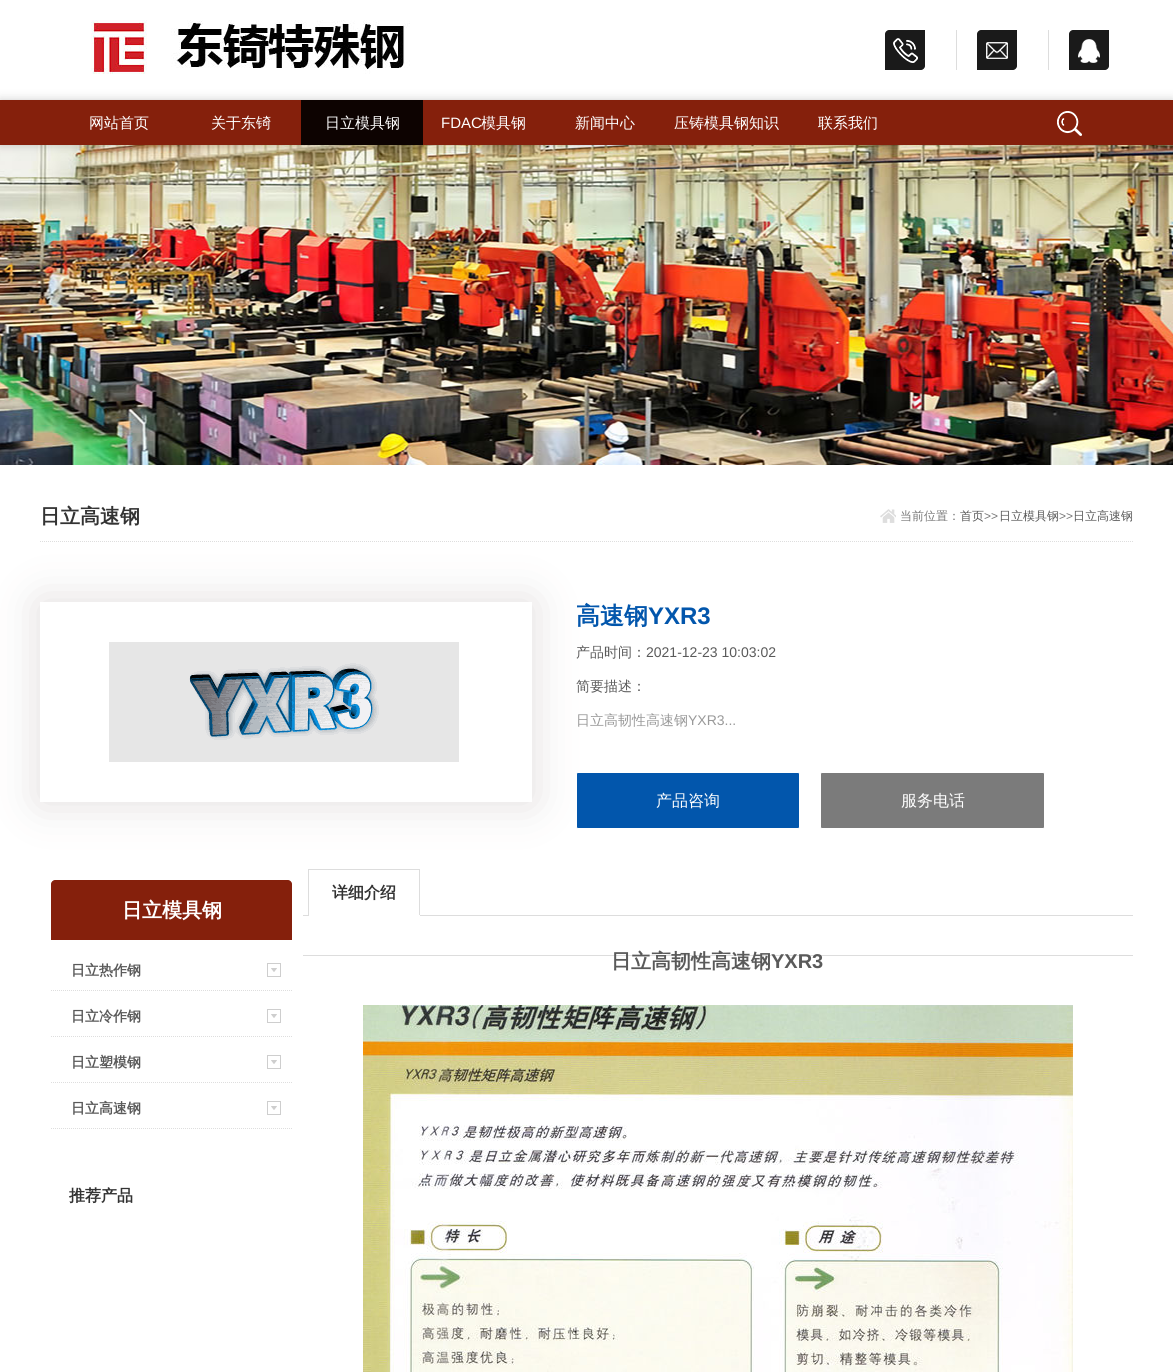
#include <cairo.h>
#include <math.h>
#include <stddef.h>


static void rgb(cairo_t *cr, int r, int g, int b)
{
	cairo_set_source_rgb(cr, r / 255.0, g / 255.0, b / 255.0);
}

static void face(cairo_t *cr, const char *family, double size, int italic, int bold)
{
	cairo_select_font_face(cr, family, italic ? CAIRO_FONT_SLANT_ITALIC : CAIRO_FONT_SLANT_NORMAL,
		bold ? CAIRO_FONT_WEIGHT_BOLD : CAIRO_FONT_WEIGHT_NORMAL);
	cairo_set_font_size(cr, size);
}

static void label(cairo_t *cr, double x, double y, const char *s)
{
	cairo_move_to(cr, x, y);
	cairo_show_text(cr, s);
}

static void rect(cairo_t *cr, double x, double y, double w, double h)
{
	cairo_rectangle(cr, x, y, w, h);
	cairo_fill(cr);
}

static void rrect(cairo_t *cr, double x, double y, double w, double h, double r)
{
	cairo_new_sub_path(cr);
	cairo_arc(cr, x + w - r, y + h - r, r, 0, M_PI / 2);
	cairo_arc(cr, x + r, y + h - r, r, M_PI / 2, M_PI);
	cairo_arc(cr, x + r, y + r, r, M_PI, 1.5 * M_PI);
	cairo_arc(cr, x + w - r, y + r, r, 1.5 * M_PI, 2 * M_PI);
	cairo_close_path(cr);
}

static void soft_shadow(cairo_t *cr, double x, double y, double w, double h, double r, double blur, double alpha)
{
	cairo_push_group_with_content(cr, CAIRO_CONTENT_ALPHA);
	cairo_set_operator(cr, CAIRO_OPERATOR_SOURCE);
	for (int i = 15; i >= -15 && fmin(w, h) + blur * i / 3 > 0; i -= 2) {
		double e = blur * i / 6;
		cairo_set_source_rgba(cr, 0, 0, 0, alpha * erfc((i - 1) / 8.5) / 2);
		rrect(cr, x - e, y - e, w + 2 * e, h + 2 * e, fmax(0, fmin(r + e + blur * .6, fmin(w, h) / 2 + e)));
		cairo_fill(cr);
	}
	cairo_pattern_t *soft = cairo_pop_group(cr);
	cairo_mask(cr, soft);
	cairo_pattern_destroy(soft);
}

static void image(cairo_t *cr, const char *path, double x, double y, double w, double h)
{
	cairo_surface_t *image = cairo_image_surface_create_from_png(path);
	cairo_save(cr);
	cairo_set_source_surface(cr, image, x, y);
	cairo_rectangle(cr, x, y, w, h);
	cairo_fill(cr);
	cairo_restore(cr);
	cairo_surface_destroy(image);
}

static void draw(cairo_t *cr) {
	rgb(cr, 255, 255, 255);
	cairo_paint(cr);
	image(cr, "image0.png", 91, 20, 319, 54);
	rgb(cr, 221, 221, 221);
	rect(cr, 956, 30, 1, 40);
	rgb(cr, 26, 26, 26);
	cairo_new_path(cr);
	cairo_move_to(cr, 889, 30);
	cairo_line_to(cr, 925, 30);
	cairo_line_to(cr, 925, 66);
	cairo_curve_to(cr, 925, 68, 923, 70, 921, 70);
	cairo_line_to(cr, 885, 70);
	cairo_line_to(cr, 885, 34);
	cairo_curve_to(cr, 885, 32, 887, 30, 889, 30);
	cairo_close_path(cr);
	cairo_fill(cr);
	image(cr, "image1.png", 893, 38, 25, 25);
	rgb(cr, 221, 221, 221);
	rect(cr, 1048, 30, 1, 40);
	rgb(cr, 26, 26, 26);
	cairo_new_path(cr);
	cairo_move_to(cr, 981, 30);
	cairo_line_to(cr, 1017, 30);
	cairo_line_to(cr, 1017, 66);
	cairo_curve_to(cr, 1017, 68, 1015, 70, 1013, 70);
	cairo_line_to(cr, 977, 70);
	cairo_line_to(cr, 977, 34);
	cairo_curve_to(cr, 977, 32, 979, 30, 981, 30);
	cairo_close_path(cr);
	cairo_fill(cr);
	image(cr, "image2.png", 986, 42, 22, 17);
	cairo_new_path(cr);
	cairo_move_to(cr, 1073, 30);
	cairo_line_to(cr, 1109, 30);
	cairo_line_to(cr, 1109, 66);
	cairo_curve_to(cr, 1109, 68, 1107, 70, 1105, 70);
	cairo_line_to(cr, 1069, 70);
	cairo_line_to(cr, 1069, 34);
	cairo_curve_to(cr, 1069, 32, 1071, 30, 1073, 30);
	cairo_close_path(cr);
	cairo_fill(cr);
	image(cr, "image3.png", 1078, 39, 22, 24);
	image(cr, "image5.png", 0, 145, 1173, 320);
	rgb(cr, 0, 0, 0);
	soft_shadow(cr, 0, 100, 1173, 45, 0, 5, 0.2);
	rgb(cr, 133, 32, 12);
	rect(cr, 0, 100, 1173, 45);
	face(cr, "WenQuanYi Zen Hei Medium", 15, 0, 0);
	rgb(cr, 255, 255, 255);
	label(cr, 89, 128, "网站首页");
	label(cr, 211, 128, "关于东锜");
	rgb(cr, 13, 3, 1);
	rect(cr, 301, 100, 122, 45);
	rgb(cr, 255, 255, 255);
	label(cr, 325, 128, "日立模具钢");
	face(cr, "Liberation Sans", 15, 0, 0);
	label(cr, 441, 128, "FDAC");
	face(cr, "WenQuanYi Zen Hei Medium", 15, 0, 0);
	label(cr, 481, 128, "模具钢");
	label(cr, 575, 128, "新闻中心");
	label(cr, 674, 128, "压铸模具钢知识");
	label(cr, 818, 128, "联系我们");
	image(cr, "image4.png", 1057, 111, 25, 25);
	cairo_new_path(cr);
	cairo_move_to(cr, 40, 541.5);
	cairo_line_to(cr, 1133, 541.5);
	rgb(cr, 222, 222, 222);
	cairo_set_line_width(cr, 1);
	cairo_set_dash(cr, (double[]){1, 1}, 2, 0);
	cairo_stroke(cr);
	face(cr, "WenQuanYi Zen Hei", 20, 0, 1);
	rgb(cr, 51, 51, 51);
	label(cr, 40, 523, "日立高速钢");
	image(cr, "image6.png", 880, 509, 16, 14);
	face(cr, "WenQuanYi Zen Hei Medium", 12, 0, 0);
	rgb(cr, 119, 119, 119);
	label(cr, 900, 520, "当前位置：");
	rgb(cr, 90, 90, 90);
	label(cr, 960, 520, "首页");
	face(cr, "Liberation Sans", 12, 0, 0);
	rgb(cr, 119, 119, 119);
	label(cr, 984, 520, ">>");
	face(cr, "WenQuanYi Zen Hei Medium", 12, 0, 0);
	rgb(cr, 90, 90, 90);
	label(cr, 999, 520, "日立模具钢");
	face(cr, "Liberation Sans", 12, 0, 0);
	rgb(cr, 119, 119, 119);
	label(cr, 1059, 520, ">>");
	face(cr, "WenQuanYi Zen Hei Medium", 12, 0, 0);
	rgb(cr, 90, 90, 90);
	label(cr, 1073, 520, "日立高速钢");
	cairo_save(cr);
	cairo_set_fill_rule(cr, CAIRO_FILL_RULE_EVEN_ODD);
	cairo_new_path(cr);
	cairo_move_to(cr, 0, 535);
	cairo_line_to(cr, 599, 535);
	cairo_line_to(cr, 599, 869);
	cairo_line_to(cr, 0, 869);
	cairo_close_path(cr);
	cairo_move_to(cr, 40, 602);
	cairo_line_to(cr, 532, 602);
	cairo_line_to(cr, 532, 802);
	cairo_line_to(cr, 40, 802);
	cairo_close_path(cr);
	cairo_clip(cr);
	rgb(cr, 225, 221, 221);
	soft_shadow(cr, 40, 602, 492, 200, 0, 22, 1);
	cairo_restore(cr);
	image(cr, "image7.png", 109, 642, 350, 120);
	face(cr, "WenQuanYi Zen Hei", 24, 0, 1);
	rgb(cr, 2, 86, 172);
	label(cr, 576, 624, "高速钢");
	face(cr, "Liberation Sans", 24, 0, 1);
	label(cr, 648, 624, "YXR3");
	face(cr, "WenQuanYi Zen Hei Medium", 14, 0, 0);
	rgb(cr, 90, 90, 90);
	label(cr, 576, 657, "产品时间：");
	face(cr, "Liberation Sans", 14, 0, 0);
	label(cr, 646, 657, "2021-12-23 10:03:02");
	face(cr, "WenQuanYi Zen Hei Medium", 14, 0, 0);
	label(cr, 576, 691, "简要描述：");
	rgb(cr, 153, 153, 153);
	label(cr, 576, 725, "日立高韧性高速钢");
	face(cr, "Liberation Sans", 14, 0, 0);
	label(cr, 688, 725, "YXR3...");
	rgb(cr, 2, 86, 172);
	rrect(cr, 576.5, 772.5, 223, 56, 1.5);
	cairo_fill_preserve(cr);
	rgb(cr, 255, 255, 255);
	cairo_set_dash(cr, NULL, 0, 0);
	cairo_stroke(cr);
	face(cr, "WenQuanYi Zen Hei Medium", 16, 0, 0);
	label(cr, 656, 806, "产品咨询");
	rgb(cr, 123, 123, 123);
	rrect(cr, 820.5, 772.5, 224, 56, 1.5);
	cairo_fill_preserve(cr);
	rgb(cr, 255, 255, 255);
	cairo_stroke(cr);
	label(cr, 901, 806, "服务电话");
	rgb(cr, 133, 32, 12);
	cairo_new_path(cr);
	cairo_move_to(cr, 55, 880);
	cairo_line_to(cr, 288, 880);
	cairo_curve_to(cr, 290, 880, 292, 882, 292, 884);
	cairo_line_to(cr, 292, 940);
	cairo_line_to(cr, 51, 940);
	cairo_line_to(cr, 51, 884);
	cairo_curve_to(cr, 51, 882, 53, 880, 55, 880);
	cairo_close_path(cr);
	cairo_fill(cr);
	face(cr, "WenQuanYi Zen Hei", 20, 0, 1);
	rgb(cr, 255, 255, 255);
	label(cr, 122, 917, "日立模具钢");
	cairo_new_path(cr);
	cairo_move_to(cr, 51, 990.5);
	cairo_line_to(cr, 292, 990.5);
	rgb(cr, 222, 222, 222);
	cairo_set_dash(cr, (double[]){1, 1}, 2, 0);
	cairo_stroke(cr);
	face(cr, "WenQuanYi Zen Hei", 14, 0, 1);
	rgb(cr, 90, 90, 90);
	label(cr, 71, 975, "日立热作钢");
	image(cr, "image8.png", 267, 963, 14, 14);
	cairo_new_path(cr);
	cairo_move_to(cr, 51, 1036.5);
	cairo_line_to(cr, 292, 1036.5);
	rgb(cr, 222, 222, 222);
	cairo_stroke(cr);
	rgb(cr, 90, 90, 90);
	label(cr, 71, 1021, "日立冷作钢");
	image(cr, "image8.png", 267, 1009, 14, 14);
	cairo_new_path(cr);
	cairo_move_to(cr, 51, 1082.5);
	cairo_line_to(cr, 292, 1082.5);
	rgb(cr, 222, 222, 222);
	cairo_stroke(cr);
	rgb(cr, 90, 90, 90);
	label(cr, 71, 1067, "日立塑模钢");
	image(cr, "image8.png", 267, 1055, 14, 14);
	cairo_new_path(cr);
	cairo_move_to(cr, 51, 1128.5);
	cairo_line_to(cr, 292, 1128.5);
	rgb(cr, 222, 222, 222);
	cairo_stroke(cr);
	rgb(cr, 90, 90, 90);
	label(cr, 71, 1113, "日立高速钢");
	image(cr, "image8.png", 267, 1101, 14, 14);
	rgb(cr, 221, 221, 221);
	rect(cr, 303, 915, 830, 1);
	rect(cr, 308, 869, 112, 1);
	rect(cr, 419, 869, 1, 47);
	rgb(cr, 255, 255, 255);
	rect(cr, 308, 915, 112, 1);
	rgb(cr, 221, 221, 221);
	rect(cr, 308, 869, 1, 47);
	face(cr, "WenQuanYi Zen Hei", 16, 0, 1);
	rgb(cr, 51, 51, 51);
	label(cr, 332, 898, "详细介绍");
	rgb(cr, 221, 221, 221);
	rect(cr, 303, 955, 830, 1);
	face(cr, "WenQuanYi Zen Hei", 20, 0, 1);
	rgb(cr, 90, 90, 90);
	label(cr, 611, 968, "日立高韧性高速钢");
	face(cr, "Liberation Sans", 20, 0, 1);
	label(cr, 771, 968, "YXR3");
	image(cr, "image9.png", 363, 1005, 710, 367);
	face(cr, "WenQuanYi Zen Hei", 16, 0, 1);
	rgb(cr, 51, 51, 51);
	label(cr, 69, 1201, "推荐产品");
}

int main(void) {
	cairo_surface_t *surface = cairo_image_surface_create(CAIRO_FORMAT_RGB24, 1173, 1372);
	cairo_t *cr = cairo_create(surface);
	cairo_font_options_t *options = cairo_font_options_create();
	cairo_font_options_set_hint_metrics(options, CAIRO_HINT_METRICS_OFF);
	cairo_font_options_set_hint_style(options, CAIRO_HINT_STYLE_NONE);
	cairo_set_font_options(cr, options);
	cairo_set_miter_limit(cr, 4);
	draw(cr);
	cairo_surface_write_to_png(surface, "render.png");
	cairo_font_options_destroy(options);
	cairo_destroy(cr);
	cairo_surface_destroy(surface);
	return 0;
}
